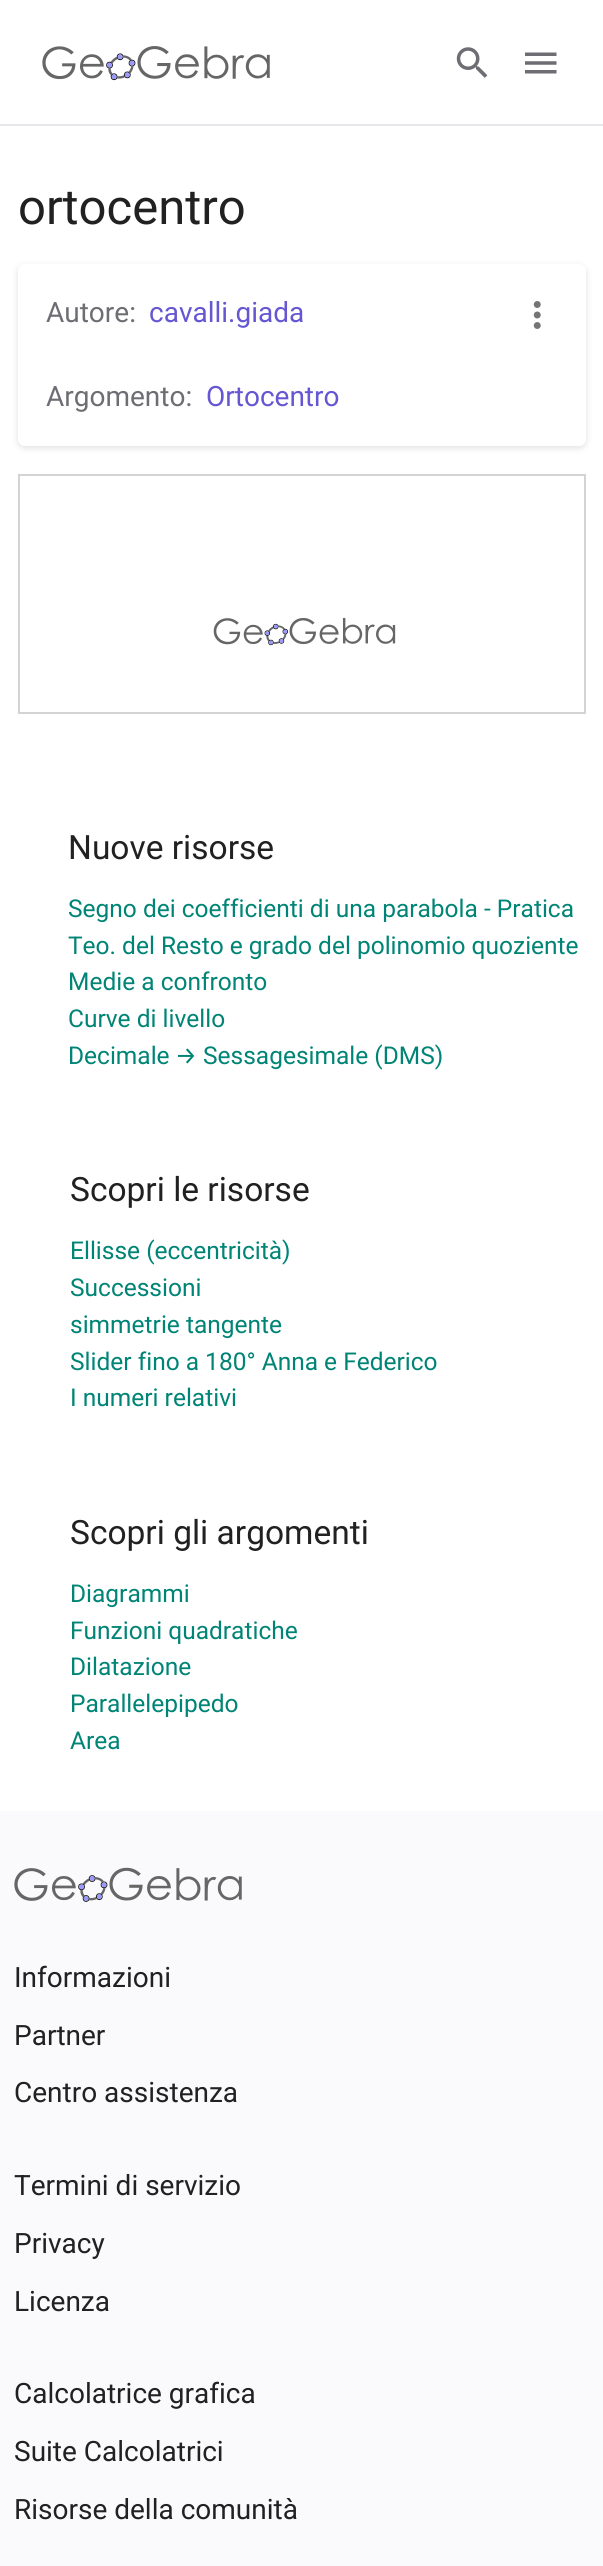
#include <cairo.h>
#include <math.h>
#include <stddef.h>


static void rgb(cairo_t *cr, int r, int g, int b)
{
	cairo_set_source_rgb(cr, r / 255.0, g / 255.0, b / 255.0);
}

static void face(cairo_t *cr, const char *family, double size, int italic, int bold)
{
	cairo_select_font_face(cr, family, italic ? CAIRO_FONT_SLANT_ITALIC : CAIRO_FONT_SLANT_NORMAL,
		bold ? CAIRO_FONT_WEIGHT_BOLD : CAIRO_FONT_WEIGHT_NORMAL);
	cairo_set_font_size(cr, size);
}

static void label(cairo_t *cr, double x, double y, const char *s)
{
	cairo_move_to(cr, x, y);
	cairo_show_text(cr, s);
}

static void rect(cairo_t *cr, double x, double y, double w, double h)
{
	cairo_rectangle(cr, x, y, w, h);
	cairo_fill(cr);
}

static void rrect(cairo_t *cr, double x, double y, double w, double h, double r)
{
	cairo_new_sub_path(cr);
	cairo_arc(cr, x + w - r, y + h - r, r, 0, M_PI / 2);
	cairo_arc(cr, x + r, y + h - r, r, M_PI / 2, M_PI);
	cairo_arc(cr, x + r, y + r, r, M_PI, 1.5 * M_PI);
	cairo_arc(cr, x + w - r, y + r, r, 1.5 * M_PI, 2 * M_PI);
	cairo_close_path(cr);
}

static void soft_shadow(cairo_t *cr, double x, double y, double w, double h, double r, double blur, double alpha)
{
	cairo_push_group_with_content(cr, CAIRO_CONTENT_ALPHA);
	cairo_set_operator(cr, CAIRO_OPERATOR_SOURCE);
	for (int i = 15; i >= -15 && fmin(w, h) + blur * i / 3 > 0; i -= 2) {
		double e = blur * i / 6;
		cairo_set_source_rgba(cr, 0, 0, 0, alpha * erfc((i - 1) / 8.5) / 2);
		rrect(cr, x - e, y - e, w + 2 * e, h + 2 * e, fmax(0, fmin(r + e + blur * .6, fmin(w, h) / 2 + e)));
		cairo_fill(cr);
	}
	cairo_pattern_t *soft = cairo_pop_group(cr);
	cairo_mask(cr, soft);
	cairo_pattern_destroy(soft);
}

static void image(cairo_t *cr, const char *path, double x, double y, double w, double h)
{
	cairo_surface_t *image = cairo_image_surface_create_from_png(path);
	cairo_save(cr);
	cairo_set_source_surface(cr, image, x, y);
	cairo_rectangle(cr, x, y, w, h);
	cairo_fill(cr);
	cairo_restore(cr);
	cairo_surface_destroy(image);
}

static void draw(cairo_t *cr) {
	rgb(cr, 255, 255, 255);
	cairo_paint(cr);
	rgb(cr, 230, 230, 235);
	rect(cr, 0, 124, 603, 2);
	image(cr, "image0.png", 42, 46, 228, 35);
	image(cr, "image1.png", 456, 47, 32, 31);
	image(cr, "image2.png", 525, 52, 32, 22);
	face(cr, "Roboto", 49, 0, 0);
	rgb(cr, 33, 33, 33);
	label(cr, 18, 224, "ortocentro");
	rgb(cr, 28, 28, 31);
	soft_shadow(cr, 18, 266, 568, 182, 7, 3.5, 0.14);
	rgb(cr, 255, 255, 255);
	rrect(cr, 18, 264, 568, 182, 7);
	cairo_fill(cr);
	face(cr, "Roboto", 28, 0, 0);
	rgb(cr, 110, 109, 115);
	label(cr, 46, 322, "Autore:");
	rgb(cr, 101, 87, 210);
	label(cr, 149, 322, "cavalli.giada");
	rgb(cr, 110, 109, 115);
	label(cr, 46, 406, "Argomento:");
	rgb(cr, 101, 87, 210);
	label(cr, 206, 406, "Ortocentro");
	image(cr, "image3.png", 533, 301, 8, 28);
	image(cr, "image4.png", 213, 617, 183, 29);
	cairo_rectangle(cr, 19, 475, 566, 238);
	rgb(cr, 211, 211, 211);
	cairo_stroke(cr);
	face(cr, "Roboto", 33.5, 0, 0);
	rgb(cr, 33, 33, 33);
	label(cr, 68, 859, "Nuove risorse");
	face(cr, "Roboto", 24.5, 0, 0);
	rgb(cr, 0, 132, 117);
	label(cr, 68, 917, "Segno dei coefficienti di una parabola - Pratica");
	label(cr, 68, 954, "Teo. del Resto e grado del polinomio quoziente");
	label(cr, 68, 990, "Medie a confronto");
	label(cr, 68, 1027, "Curve di livello");
	label(cr, 68, 1064, "Decimale");
	face(cr, "Fira Sans", 24.5, 0, 0);
	label(cr, 175, 1064, "→");
	face(cr, "Roboto", 24.5, 0, 0);
	label(cr, 203, 1064, "Sessagesimale (DMS)");
	face(cr, "Roboto", 33.5, 0, 0);
	rgb(cr, 33, 33, 33);
	label(cr, 70, 1201, "Scopri le risorse");
	face(cr, "Roboto", 24.5, 0, 0);
	rgb(cr, 0, 132, 117);
	label(cr, 70, 1259, "Ellisse (eccentricità)");
	label(cr, 70, 1296, "Successioni");
	label(cr, 70, 1333, "simmetrie tangente");
	label(cr, 70, 1370, "Slider fino a 180° Anna e Federico");
	label(cr, 70, 1406, "I numeri relativi");
	face(cr, "Roboto", 33.5, 0, 0);
	rgb(cr, 33, 33, 33);
	label(cr, 70, 1544, "Scopri gli argomenti");
	face(cr, "Roboto", 24.5, 0, 0);
	rgb(cr, 0, 132, 117);
	label(cr, 70, 1602, "Diagrammi");
	label(cr, 70, 1639, "Funzioni quadratiche");
	label(cr, 70, 1675, "Dilatazione");
	label(cr, 70, 1712, "Parallelepipedo");
	label(cr, 70, 1749, "Area");
	rgb(cr, 250, 250, 252);
	rect(cr, 0, 1811, 603, 755);
	image(cr, "image5.png", 14, 1867, 228, 35);
	face(cr, "Roboto", 28, 0, 0);
	rgb(cr, 33, 33, 33);
	label(cr, 14, 1987, "Informazioni");
	label(cr, 14, 2045, "Partner");
	label(cr, 14, 2102, "Centro assistenza");
	label(cr, 14, 2195, "Termini di servizio");
	label(cr, 14, 2253, "Privacy");
	label(cr, 14, 2311, "Licenza");
	label(cr, 14, 2403, "Calcolatrice grafica");
	label(cr, 14, 2461, "Suite Calcolatrici");
	label(cr, 14, 2519, "Risorse della comunità");
}

int main(void) {
	cairo_surface_t *surface = cairo_image_surface_create(CAIRO_FORMAT_RGB24, 603, 2566);
	cairo_t *cr = cairo_create(surface);
	cairo_font_options_t *options = cairo_font_options_create();
	cairo_font_options_set_hint_metrics(options, CAIRO_HINT_METRICS_OFF);
	cairo_font_options_set_hint_style(options, CAIRO_HINT_STYLE_NONE);
	cairo_set_font_options(cr, options);
	cairo_set_miter_limit(cr, 4);
	draw(cr);
	cairo_surface_write_to_png(surface, "render.png");
	cairo_font_options_destroy(options);
	cairo_destroy(cr);
	cairo_surface_destroy(surface);
	return 0;
}
